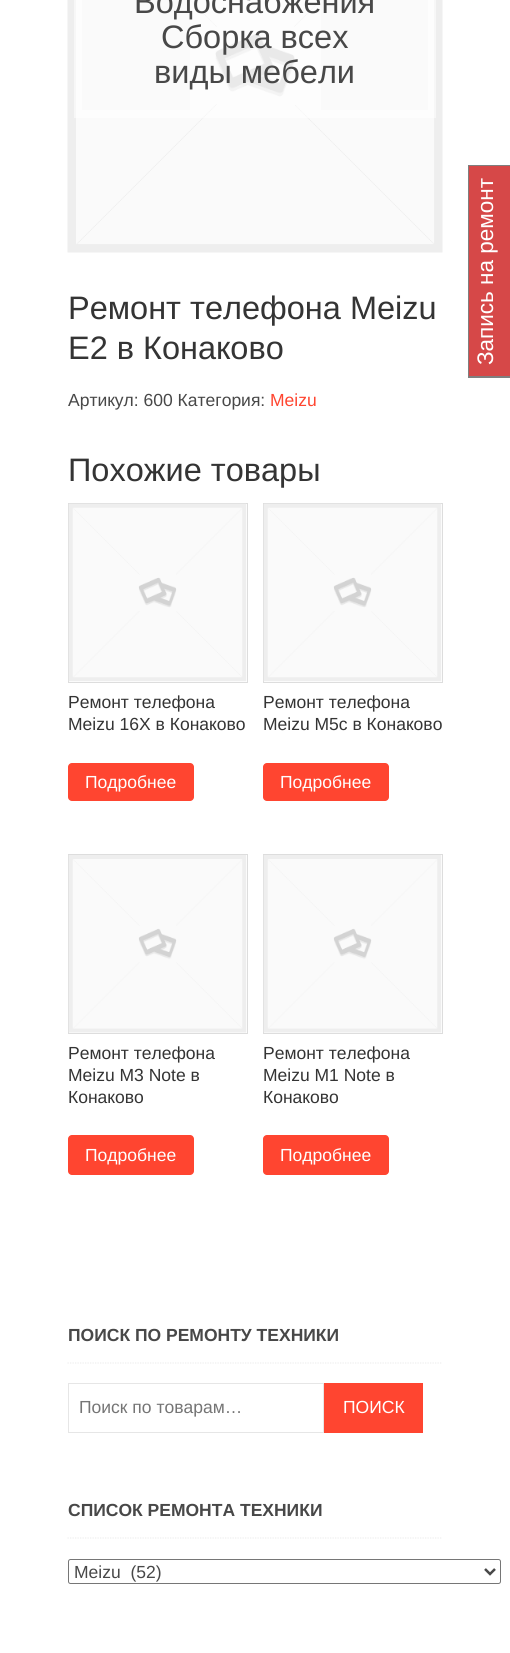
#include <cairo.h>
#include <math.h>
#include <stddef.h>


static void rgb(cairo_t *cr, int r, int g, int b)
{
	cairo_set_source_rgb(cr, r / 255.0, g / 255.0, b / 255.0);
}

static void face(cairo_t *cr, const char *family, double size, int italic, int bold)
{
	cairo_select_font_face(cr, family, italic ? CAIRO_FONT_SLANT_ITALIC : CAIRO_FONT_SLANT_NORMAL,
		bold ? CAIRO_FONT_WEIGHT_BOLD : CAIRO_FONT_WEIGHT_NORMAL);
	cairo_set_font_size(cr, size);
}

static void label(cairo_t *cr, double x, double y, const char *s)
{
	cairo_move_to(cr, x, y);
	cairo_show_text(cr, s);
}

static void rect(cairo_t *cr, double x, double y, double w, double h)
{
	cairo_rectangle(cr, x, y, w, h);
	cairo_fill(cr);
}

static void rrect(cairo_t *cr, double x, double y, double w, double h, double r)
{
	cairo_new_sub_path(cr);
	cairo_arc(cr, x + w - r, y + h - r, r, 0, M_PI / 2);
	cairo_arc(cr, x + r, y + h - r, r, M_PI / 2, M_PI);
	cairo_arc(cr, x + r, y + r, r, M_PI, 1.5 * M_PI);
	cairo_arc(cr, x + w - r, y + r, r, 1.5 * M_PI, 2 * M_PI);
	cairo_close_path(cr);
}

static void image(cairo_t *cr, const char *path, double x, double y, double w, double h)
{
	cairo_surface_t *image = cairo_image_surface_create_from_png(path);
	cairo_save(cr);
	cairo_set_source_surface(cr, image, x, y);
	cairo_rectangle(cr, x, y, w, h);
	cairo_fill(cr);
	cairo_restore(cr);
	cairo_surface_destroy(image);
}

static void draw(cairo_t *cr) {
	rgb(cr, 255, 255, 255);
	cairo_paint(cr);
	image(cr, "image0.png", 67, 0, 376, 253);
	cairo_set_source_rgba(cr, 1, 1, 1, 0.5);
	rect(cr, 190, 0, 131, 110);
	cairo_rectangle(cr, 78, -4, 354, 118);
	cairo_set_line_width(cr, 8);
	cairo_stroke(cr);
	face(cr, "Arimo", 32.5, 0, 0);
	rgb(cr, 72, 72, 72);
	label(cr, 134, 13, "Водоснабжения");
	label(cr, 161, 48, "Сборка всех");
	label(cr, 154, 83, "виды мебели");
	rgb(cr, 52, 52, 52);
	label(cr, 68, 319, "Ремонт телефона Meizu");
	label(cr, 68, 359, "E2 в Конаково");
	face(cr, "Arimo", 17.5, 0, 0);
	rgb(cr, 72, 72, 72);
	label(cr, 68, 406, "Артикул: 600 Категория:");
	rgb(cr, 255, 69, 48);
	label(cr, 270, 406, "Meizu");
	face(cr, "Arimo", 32.5, 0, 0);
	rgb(cr, 52, 52, 52);
	label(cr, 68, 481, "Похожие товары");
	cairo_rectangle(cr, 68.5, 503.5, 179, 179);
	rgb(cr, 221, 221, 221);
	cairo_set_line_width(cr, 1);
	cairo_stroke(cr);
	image(cr, "image1.png", 68, 503, 179, 179);
	face(cr, "Arimo", 17.5, 0, 0);
	rgb(cr, 52, 52, 52);
	label(cr, 68, 708, "Ремонт телефона");
	label(cr, 68, 730, "Meizu 16X в Конаково");
	rgb(cr, 255, 69, 48);
	rrect(cr, 68, 763, 126, 38, 4);
	cairo_fill(cr);
	rgb(cr, 255, 255, 255);
	label(cr, 85, 788, "Подробнее");
	cairo_rectangle(cr, 263.5, 503.5, 179, 179);
	rgb(cr, 221, 221, 221);
	cairo_stroke(cr);
	image(cr, "image2.png", 263, 503, 179, 179);
	rgb(cr, 52, 52, 52);
	label(cr, 263, 708, "Ремонт телефона");
	label(cr, 263, 730, "Meizu M5c в Конаково");
	rgb(cr, 255, 69, 48);
	rrect(cr, 263, 763, 126, 38, 4);
	cairo_fill(cr);
	rgb(cr, 255, 255, 255);
	label(cr, 280, 788, "Подробнее");
	cairo_rectangle(cr, 68.5, 854.5, 179, 179);
	rgb(cr, 221, 221, 221);
	cairo_stroke(cr);
	image(cr, "image3.png", 68, 855, 179, 178);
	rgb(cr, 52, 52, 52);
	label(cr, 68, 1059, "Ремонт телефона");
	label(cr, 68, 1081, "Meizu M3 Note в");
	label(cr, 68, 1103, "Конаково");
	rgb(cr, 255, 69, 48);
	rrect(cr, 68, 1135, 126, 40, 4);
	cairo_fill(cr);
	rgb(cr, 255, 255, 255);
	label(cr, 85, 1161, "Подробнее");
	cairo_rectangle(cr, 263.5, 854.5, 179, 179);
	rgb(cr, 221, 221, 221);
	cairo_stroke(cr);
	image(cr, "image4.png", 263, 855, 179, 178);
	rgb(cr, 52, 52, 52);
	label(cr, 263, 1059, "Ремонт телефона");
	label(cr, 263, 1081, "Meizu M1 Note в");
	label(cr, 263, 1103, "Конаково");
	rgb(cr, 255, 69, 48);
	rrect(cr, 263, 1135, 126, 40, 4);
	cairo_fill(cr);
	rgb(cr, 255, 255, 255);
	label(cr, 280, 1161, "Подробнее");
	cairo_new_path(cr);
	cairo_move_to(cr, 67.5, 1363);
	cairo_line_to(cr, 442.5, 1363);
	rgb(cr, 238, 238, 238);
	cairo_set_line_width(cr, 1.2);
	cairo_set_dash(cr, (double[]){1.25, 1.25}, 2, 0);
	cairo_stroke(cr);
	face(cr, "Arimo", 17.5, 0, 1);
	rgb(cr, 72, 72, 72);
	label(cr, 68, 1341, "ПОИСК ПО РЕМОНТУ ТЕХНИКИ");
	cairo_rectangle(cr, 68.5, 1383.5, 255, 49);
	rgb(cr, 230, 230, 230);
	cairo_set_line_width(cr, 1);
	cairo_set_dash(cr, NULL, 0, 0);
	cairo_stroke(cr);
	face(cr, "Arimo", 17.5, 0, 0);
	rgb(cr, 117, 117, 117);
	label(cr, 79, 1413, "Поиск по товарам…");
	rgb(cr, 255, 69, 48);
	rect(cr, 324, 1383, 99, 50);
	rgb(cr, 255, 255, 255);
	label(cr, 343, 1413, "ПОИСК");
	cairo_new_path(cr);
	cairo_move_to(cr, 67.5, 1538);
	cairo_line_to(cr, 442.5, 1538);
	rgb(cr, 238, 238, 238);
	cairo_set_line_width(cr, 1.2);
	cairo_set_dash(cr, (double[]){1.25, 1.25}, 2, 0);
	cairo_stroke(cr);
	face(cr, "Arimo", 17.5, 0, 1);
	rgb(cr, 72, 72, 72);
	label(cr, 68, 1516, "СПИСОК РЕМОНТА ТЕХНИКИ");
	rrect(cr, 68.5, 1559.5, 432, 24, 2);
	rgb(cr, 118, 118, 118);
	cairo_set_line_width(cr, 1);
	cairo_set_dash(cr, NULL, 0, 0);
	cairo_stroke(cr);
	cairo_new_path(cr);
	cairo_move_to(cr, 485, 1569);
	cairo_line_to(cr, 490, 1574);
	cairo_line_to(cr, 495, 1569);
	rgb(cr, 72, 72, 72);
	cairo_set_line_width(cr, 2.5);
	cairo_stroke(cr);
	face(cr, "Arimo", 17.5, 0, 0);
	label(cr, 74, 1578, "Meizu  (52)");
	rgb(cr, 214, 72, 72);
	rect(cr, 469, 166, 41, 210);
	rgb(cr, 127, 127, 127);
	rect(cr, 468, 165, 1, 213);
	rect(cr, 468, 165, 42, 1);
	rect(cr, 468, 376, 42, 2);
	face(cr, "Arimo", 22.5, 0, 0);
	rgb(cr, 255, 255, 255);
	cairo_save(cr);
	cairo_translate(cr, 493, 365);
	cairo_rotate(cr, -90 * M_PI / 180);
	label(cr, 0, 0, "Запись на ремонт");
	cairo_restore(cr);
}

int main(void) {
	cairo_surface_t *surface = cairo_image_surface_create(CAIRO_FORMAT_RGB24, 510, 1653);
	cairo_t *cr = cairo_create(surface);
	cairo_font_options_t *options = cairo_font_options_create();
	cairo_font_options_set_hint_metrics(options, CAIRO_HINT_METRICS_OFF);
	cairo_font_options_set_hint_style(options, CAIRO_HINT_STYLE_NONE);
	cairo_set_font_options(cr, options);
	cairo_set_miter_limit(cr, 4);
	draw(cr);
	cairo_surface_write_to_png(surface, "render.png");
	cairo_font_options_destroy(options);
	cairo_destroy(cr);
	cairo_surface_destroy(surface);
	return 0;
}
